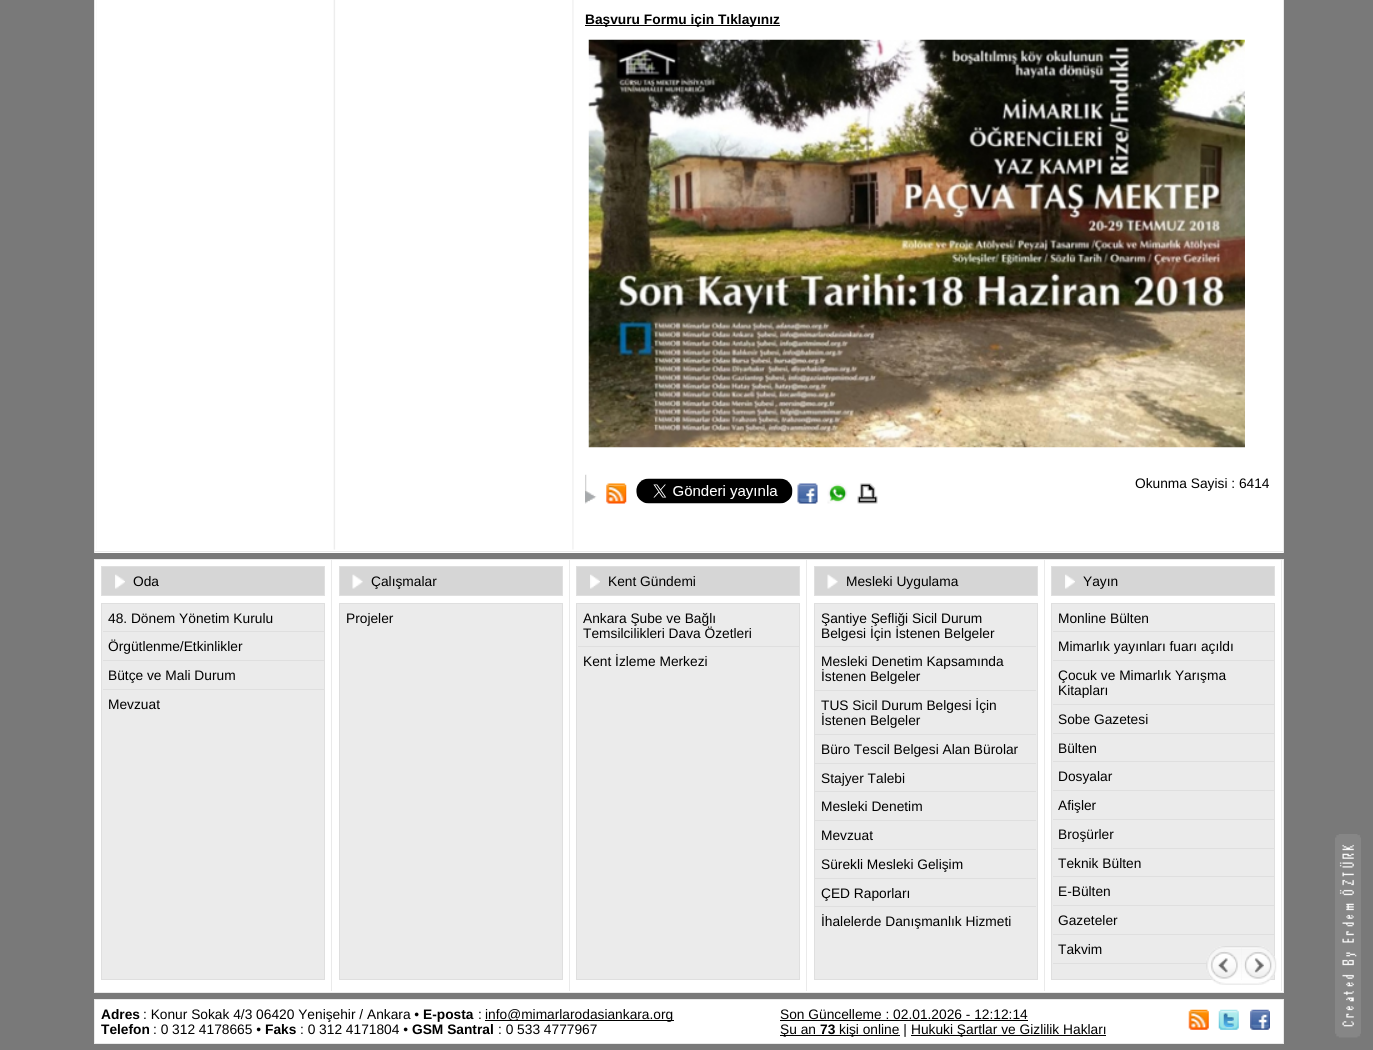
#include <cairo.h>
#include <math.h>
#include <stddef.h>


static void rgb(cairo_t *cr, int r, int g, int b)
{
	cairo_set_source_rgb(cr, r / 255.0, g / 255.0, b / 255.0);
}

static void face(cairo_t *cr, const char *family, double size, int italic, int bold)
{
	cairo_select_font_face(cr, family, italic ? CAIRO_FONT_SLANT_ITALIC : CAIRO_FONT_SLANT_NORMAL,
		bold ? CAIRO_FONT_WEIGHT_BOLD : CAIRO_FONT_WEIGHT_NORMAL);
	cairo_set_font_size(cr, size);
}

static void label(cairo_t *cr, double x, double y, const char *s)
{
	cairo_move_to(cr, x, y);
	cairo_show_text(cr, s);
}

static void rect(cairo_t *cr, double x, double y, double w, double h)
{
	cairo_rectangle(cr, x, y, w, h);
	cairo_fill(cr);
}

static void image(cairo_t *cr, const char *path, double x, double y, double w, double h)
{
	cairo_surface_t *image = cairo_image_surface_create_from_png(path);
	cairo_save(cr);
	cairo_set_source_surface(cr, image, x, y);
	cairo_rectangle(cr, x, y, w, h);
	cairo_fill(cr);
	cairo_restore(cr);
	cairo_surface_destroy(image);
}

static void draw(cairo_t *cr) {
	rgb(cr, 121, 121, 121);
	cairo_paint(cr);
	rgb(cr, 255, 255, 255);
	rect(cr, 95, 0, 1188, 553);
	rgb(cr, 234, 234, 234);
	rect(cr, 1283, 0, 1, 553);
	rect(cr, 94, 551, 1190, 1);
	rect(cr, 94, 0, 1, 553);
	image(cr, "image0.png", 96, 0, 478, 550);
	rgb(cr, 0, 0, 0);
	rect(cr, 585, 25, 195, 1);
	face(cr, "Liberation Sans", 13.75, 0, 1);
	label(cr, 585, 24, "Başvuru Formu için Tıklayınız");
	image(cr, "image1.png", 588, 39, 657, 409);
	image(cr, "image2.png", 585, 474, 12, 30);
	image(cr, "image3.png", 606, 483, 21, 21);
	image(cr, "image4.png", 636, 478, 157, 26);
	image(cr, "image5.png", 797, 483, 21, 21);
	image(cr, "image6.png", 827, 483, 21, 21);
	image(cr, "image7.png", 857, 483, 21, 21);
	face(cr, "Liberation Sans", 13.75, 0, 0);
	label(cr, 1135, 488, "Okunma Sayisi : 6414");
	rgb(cr, 255, 255, 255);
	cairo_rectangle(cr, 94.5, 559.5, 1189, 433);
	cairo_fill_preserve(cr);
	rgb(cr, 234, 234, 234);
	cairo_set_line_width(cr, 1);
	cairo_stroke(cr);
	rect(cr, 331, 560, 1, 431);
	rgb(cr, 214, 214, 214);
	rect(cr, 102, 567, 222, 28);
	image(cr, "image8.png", 115, 574, 10, 15);
	cairo_rectangle(cr, 101.5, 566.5, 223, 29);
	rgb(cr, 223, 223, 223);
	cairo_stroke(cr);
	rgb(cr, 0, 0, 0);
	label(cr, 133, 586, "Oda");
	rgb(cr, 235, 235, 235);
	cairo_rectangle(cr, 101.5, 603.5, 223, 376);
	cairo_fill_preserve(cr);
	rgb(cr, 223, 223, 223);
	cairo_stroke(cr);
	rgb(cr, 0, 0, 0);
	label(cr, 108, 623, "48. Dönem Yönetim Kurulu");
	rgb(cr, 223, 223, 223);
	rect(cr, 103, 631, 221, 1);
	rgb(cr, 0, 0, 0);
	label(cr, 108, 651, "Örgütlenme/Etkinlikler");
	rgb(cr, 223, 223, 223);
	rect(cr, 103, 660, 221, 1);
	rgb(cr, 0, 0, 0);
	label(cr, 108, 680, "Bütçe ve Mali Durum");
	rgb(cr, 223, 223, 223);
	rect(cr, 103, 689, 221, 1);
	rgb(cr, 0, 0, 0);
	label(cr, 108, 709, "Mevzuat");
	rgb(cr, 234, 234, 234);
	rect(cr, 569, 560, 1, 431);
	rgb(cr, 214, 214, 214);
	rect(cr, 340, 567, 222, 28);
	image(cr, "image9.png", 352, 574, 11, 15);
	cairo_rectangle(cr, 339.5, 566.5, 223, 29);
	rgb(cr, 223, 223, 223);
	cairo_stroke(cr);
	rgb(cr, 0, 0, 0);
	label(cr, 371, 586, "Çalışmalar");
	rgb(cr, 235, 235, 235);
	cairo_rectangle(cr, 339.5, 603.5, 223, 376);
	cairo_fill_preserve(cr);
	rgb(cr, 223, 223, 223);
	cairo_stroke(cr);
	rgb(cr, 0, 0, 0);
	label(cr, 346, 623, "Projeler");
	rgb(cr, 234, 234, 234);
	rect(cr, 806, 560, 1, 431);
	rgb(cr, 214, 214, 214);
	rect(cr, 577, 567, 222, 28);
	image(cr, "image8.png", 590, 574, 10, 15);
	cairo_rectangle(cr, 576.5, 566.5, 223, 29);
	rgb(cr, 223, 223, 223);
	cairo_stroke(cr);
	rgb(cr, 0, 0, 0);
	label(cr, 608, 586, "Kent Gündemi");
	rgb(cr, 235, 235, 235);
	cairo_rectangle(cr, 576.5, 603.5, 223, 376);
	cairo_fill_preserve(cr);
	rgb(cr, 223, 223, 223);
	cairo_stroke(cr);
	rgb(cr, 0, 0, 0);
	label(cr, 583, 623, "Ankara Şube ve Bağlı");
	label(cr, 583, 638, "Temsilcilikleri Dava Özetleri");
	rgb(cr, 223, 223, 223);
	rect(cr, 578, 646, 221, 1);
	rgb(cr, 0, 0, 0);
	label(cr, 583, 666, "Kent İzleme Merkezi");
	rgb(cr, 234, 234, 234);
	rect(cr, 1044, 560, 1, 431);
	rgb(cr, 214, 214, 214);
	rect(cr, 815, 567, 222, 28);
	image(cr, "image9.png", 827, 574, 11, 15);
	cairo_rectangle(cr, 814.5, 566.5, 223, 29);
	rgb(cr, 223, 223, 223);
	cairo_stroke(cr);
	rgb(cr, 0, 0, 0);
	label(cr, 846, 586, "Mesleki Uygulama");
	rgb(cr, 235, 235, 235);
	cairo_rectangle(cr, 814.5, 603.5, 223, 376);
	cairo_fill_preserve(cr);
	rgb(cr, 223, 223, 223);
	cairo_stroke(cr);
	rgb(cr, 0, 0, 0);
	label(cr, 821, 623, "Şantiye Şefliği Sicil Durum");
	label(cr, 821, 638, "Belgesi İçin İstenen Belgeler");
	rgb(cr, 223, 223, 223);
	rect(cr, 815, 646, 221, 1);
	rgb(cr, 0, 0, 0);
	label(cr, 821, 666, "Mesleki Denetim Kapsamında");
	label(cr, 821, 681, "İstenen Belgeler");
	rgb(cr, 223, 223, 223);
	rect(cr, 815, 690, 221, 1);
	rgb(cr, 0, 0, 0);
	label(cr, 821, 710, "TUS Sicil Durum Belgesi İçin");
	label(cr, 821, 725, "İstenen Belgeler");
	rgb(cr, 223, 223, 223);
	rect(cr, 815, 734, 221, 1);
	rgb(cr, 0, 0, 0);
	label(cr, 821, 754, "Büro Tescil Belgesi Alan Bürolar");
	rgb(cr, 223, 223, 223);
	rect(cr, 815, 763, 221, 1);
	rgb(cr, 0, 0, 0);
	label(cr, 821, 783, "Stajyer Talebi");
	rgb(cr, 223, 223, 223);
	rect(cr, 815, 791, 221, 1);
	rgb(cr, 0, 0, 0);
	label(cr, 821, 811, "Mesleki Denetim");
	rgb(cr, 223, 223, 223);
	rect(cr, 815, 820, 221, 1);
	rgb(cr, 0, 0, 0);
	label(cr, 821, 840, "Mevzuat");
	rgb(cr, 223, 223, 223);
	rect(cr, 815, 849, 221, 1);
	rgb(cr, 0, 0, 0);
	label(cr, 821, 869, "Sürekli Mesleki Gelişim");
	rgb(cr, 223, 223, 223);
	rect(cr, 815, 878, 221, 1);
	rgb(cr, 0, 0, 0);
	label(cr, 821, 898, "ÇED Raporları");
	rgb(cr, 223, 223, 223);
	rect(cr, 815, 906, 221, 1);
	rgb(cr, 0, 0, 0);
	label(cr, 821, 926, "İhalelerde Danışmanlık Hizmeti");
	rgb(cr, 234, 234, 234);
	rect(cr, 1281, 560, 1, 431);
	rgb(cr, 214, 214, 214);
	rect(cr, 1052, 567, 222, 28);
	image(cr, "image8.png", 1065, 574, 10, 15);
	cairo_rectangle(cr, 1051.5, 566.5, 223, 29);
	rgb(cr, 223, 223, 223);
	cairo_stroke(cr);
	rgb(cr, 0, 0, 0);
	label(cr, 1083, 586, "Yayın");
	rgb(cr, 235, 235, 235);
	cairo_rectangle(cr, 1051.5, 603.5, 223, 376);
	cairo_fill_preserve(cr);
	rgb(cr, 223, 223, 223);
	cairo_stroke(cr);
	rgb(cr, 0, 0, 0);
	label(cr, 1058, 623, "Monline Bülten");
	rgb(cr, 223, 223, 223);
	rect(cr, 1053, 631, 221, 1);
	rgb(cr, 0, 0, 0);
	label(cr, 1058, 651, "Mimarlık yayınları fuarı açıldı");
	rgb(cr, 223, 223, 223);
	rect(cr, 1053, 660, 221, 1);
	rgb(cr, 0, 0, 0);
	label(cr, 1058, 680, "Çocuk ve Mimarlık Yarışma");
	label(cr, 1058, 695, "Kitapları");
	rgb(cr, 223, 223, 223);
	rect(cr, 1053, 704, 221, 1);
	rgb(cr, 0, 0, 0);
	label(cr, 1058, 724, "Sobe Gazetesi");
	rgb(cr, 223, 223, 223);
	rect(cr, 1053, 733, 221, 1);
	rgb(cr, 0, 0, 0);
	label(cr, 1058, 753, "Bülten");
	rgb(cr, 223, 223, 223);
	rect(cr, 1053, 761, 221, 1);
	rgb(cr, 0, 0, 0);
	label(cr, 1058, 781, "Dosyalar");
	rgb(cr, 223, 223, 223);
	rect(cr, 1053, 790, 221, 1);
	rgb(cr, 0, 0, 0);
	label(cr, 1058, 810, "Afişler");
	rgb(cr, 223, 223, 223);
	rect(cr, 1053, 819, 221, 1);
	rgb(cr, 0, 0, 0);
	label(cr, 1058, 839, "Broşürler");
	rgb(cr, 223, 223, 223);
	rect(cr, 1053, 848, 221, 1);
	rgb(cr, 0, 0, 0);
	label(cr, 1058, 868, "Teknik Bülten");
	rgb(cr, 223, 223, 223);
	rect(cr, 1053, 876, 221, 1);
	rgb(cr, 0, 0, 0);
	label(cr, 1058, 896, "E-Bülten");
	rgb(cr, 223, 223, 223);
	rect(cr, 1053, 905, 221, 1);
	rgb(cr, 0, 0, 0);
	label(cr, 1058, 925, "Gazeteler");
	rgb(cr, 223, 223, 223);
	rect(cr, 1053, 934, 221, 1);
	rgb(cr, 0, 0, 0);
	label(cr, 1058, 954, "Takvim");
	rgb(cr, 223, 223, 223);
	rect(cr, 1053, 963, 189, 1);
	image(cr, "image10.png", 1206, 946, 36, 39);
	image(cr, "image11.png", 1241, 946, 36, 39);
	rgb(cr, 255, 255, 255);
	rect(cr, 95, 1000, 1188, 43);
	rgb(cr, 234, 234, 234);
	rect(cr, 94, 999, 1190, 1);
	rect(cr, 1283, 999, 1, 45);
	rect(cr, 94, 1043, 1190, 1);
	rect(cr, 94, 999, 1, 45);
	face(cr, "Liberation Sans", 13.75, 0, 1);
	rgb(cr, 0, 0, 0);
	label(cr, 101, 1019, "Adres");
	face(cr, "Liberation Sans", 13.75, 0, 0);
	label(cr, 143, 1019, ": Konur Sokak 4/3 06420 Yenişehir / Ankara •");
	face(cr, "Liberation Sans", 13.75, 0, 1);
	label(cr, 423, 1019, "E-posta");
	face(cr, "Liberation Sans", 13.75, 0, 0);
	label(cr, 478, 1019, ":");
	rect(cr, 485, 1020, 189, 1);
	label(cr, 485, 1019, "info@mimarlarodasiankara.org");
	face(cr, "Liberation Sans", 13.75, 0, 1);
	label(cr, 101, 1034, "Telefon");
	face(cr, "Liberation Sans", 13.75, 0, 0);
	label(cr, 153, 1034, ": 0 312 4178665 •");
	face(cr, "Liberation Sans", 13.75, 0, 1);
	label(cr, 265, 1034, "Faks");
	face(cr, "Liberation Sans", 13.75, 0, 0);
	label(cr, 300, 1034, ": 0 312 4171804 •");
	face(cr, "Liberation Sans", 13.75, 0, 1);
	label(cr, 412, 1034, "GSM Santral");
	face(cr, "Liberation Sans", 13.75, 0, 0);
	label(cr, 498, 1034, ": 0 533 4777967");
	label(cr, 780, 1019, "Son Güncelleme : 02.01.2026 - 12:12:14");
	rect(cr, 780, 1020, 248, 1);
	rect(cr, 780, 1035, 120, 1);
	label(cr, 780, 1034, "Şu an");
	face(cr, "Liberation Sans", 13.75, 0, 1);
	label(cr, 820, 1034, "73");
	face(cr, "Liberation Sans", 13.75, 0, 0);
	label(cr, 839, 1034, "kişi online |");
	rect(cr, 911, 1035, 195, 1);
	label(cr, 911, 1034, "Hukuki Şartlar ve Gizlilik Hakları");
	image(cr, "image12.png", 1188, 1009, 21, 21);
	image(cr, "image13.png", 1218, 1009, 21, 21);
	image(cr, "image14.png", 1250, 1009, 20, 21);
	image(cr, "image15.png", 1335, 834, 26, 204);
}

int main(void) {
	cairo_surface_t *surface = cairo_image_surface_create(CAIRO_FORMAT_RGB24, 1373, 1050);
	cairo_t *cr = cairo_create(surface);
	cairo_font_options_t *options = cairo_font_options_create();
	cairo_font_options_set_hint_metrics(options, CAIRO_HINT_METRICS_OFF);
	cairo_font_options_set_hint_style(options, CAIRO_HINT_STYLE_NONE);
	cairo_set_font_options(cr, options);
	cairo_set_miter_limit(cr, 4);
	draw(cr);
	cairo_surface_write_to_png(surface, "render.png");
	cairo_font_options_destroy(options);
	cairo_destroy(cr);
	cairo_surface_destroy(surface);
	return 0;
}
